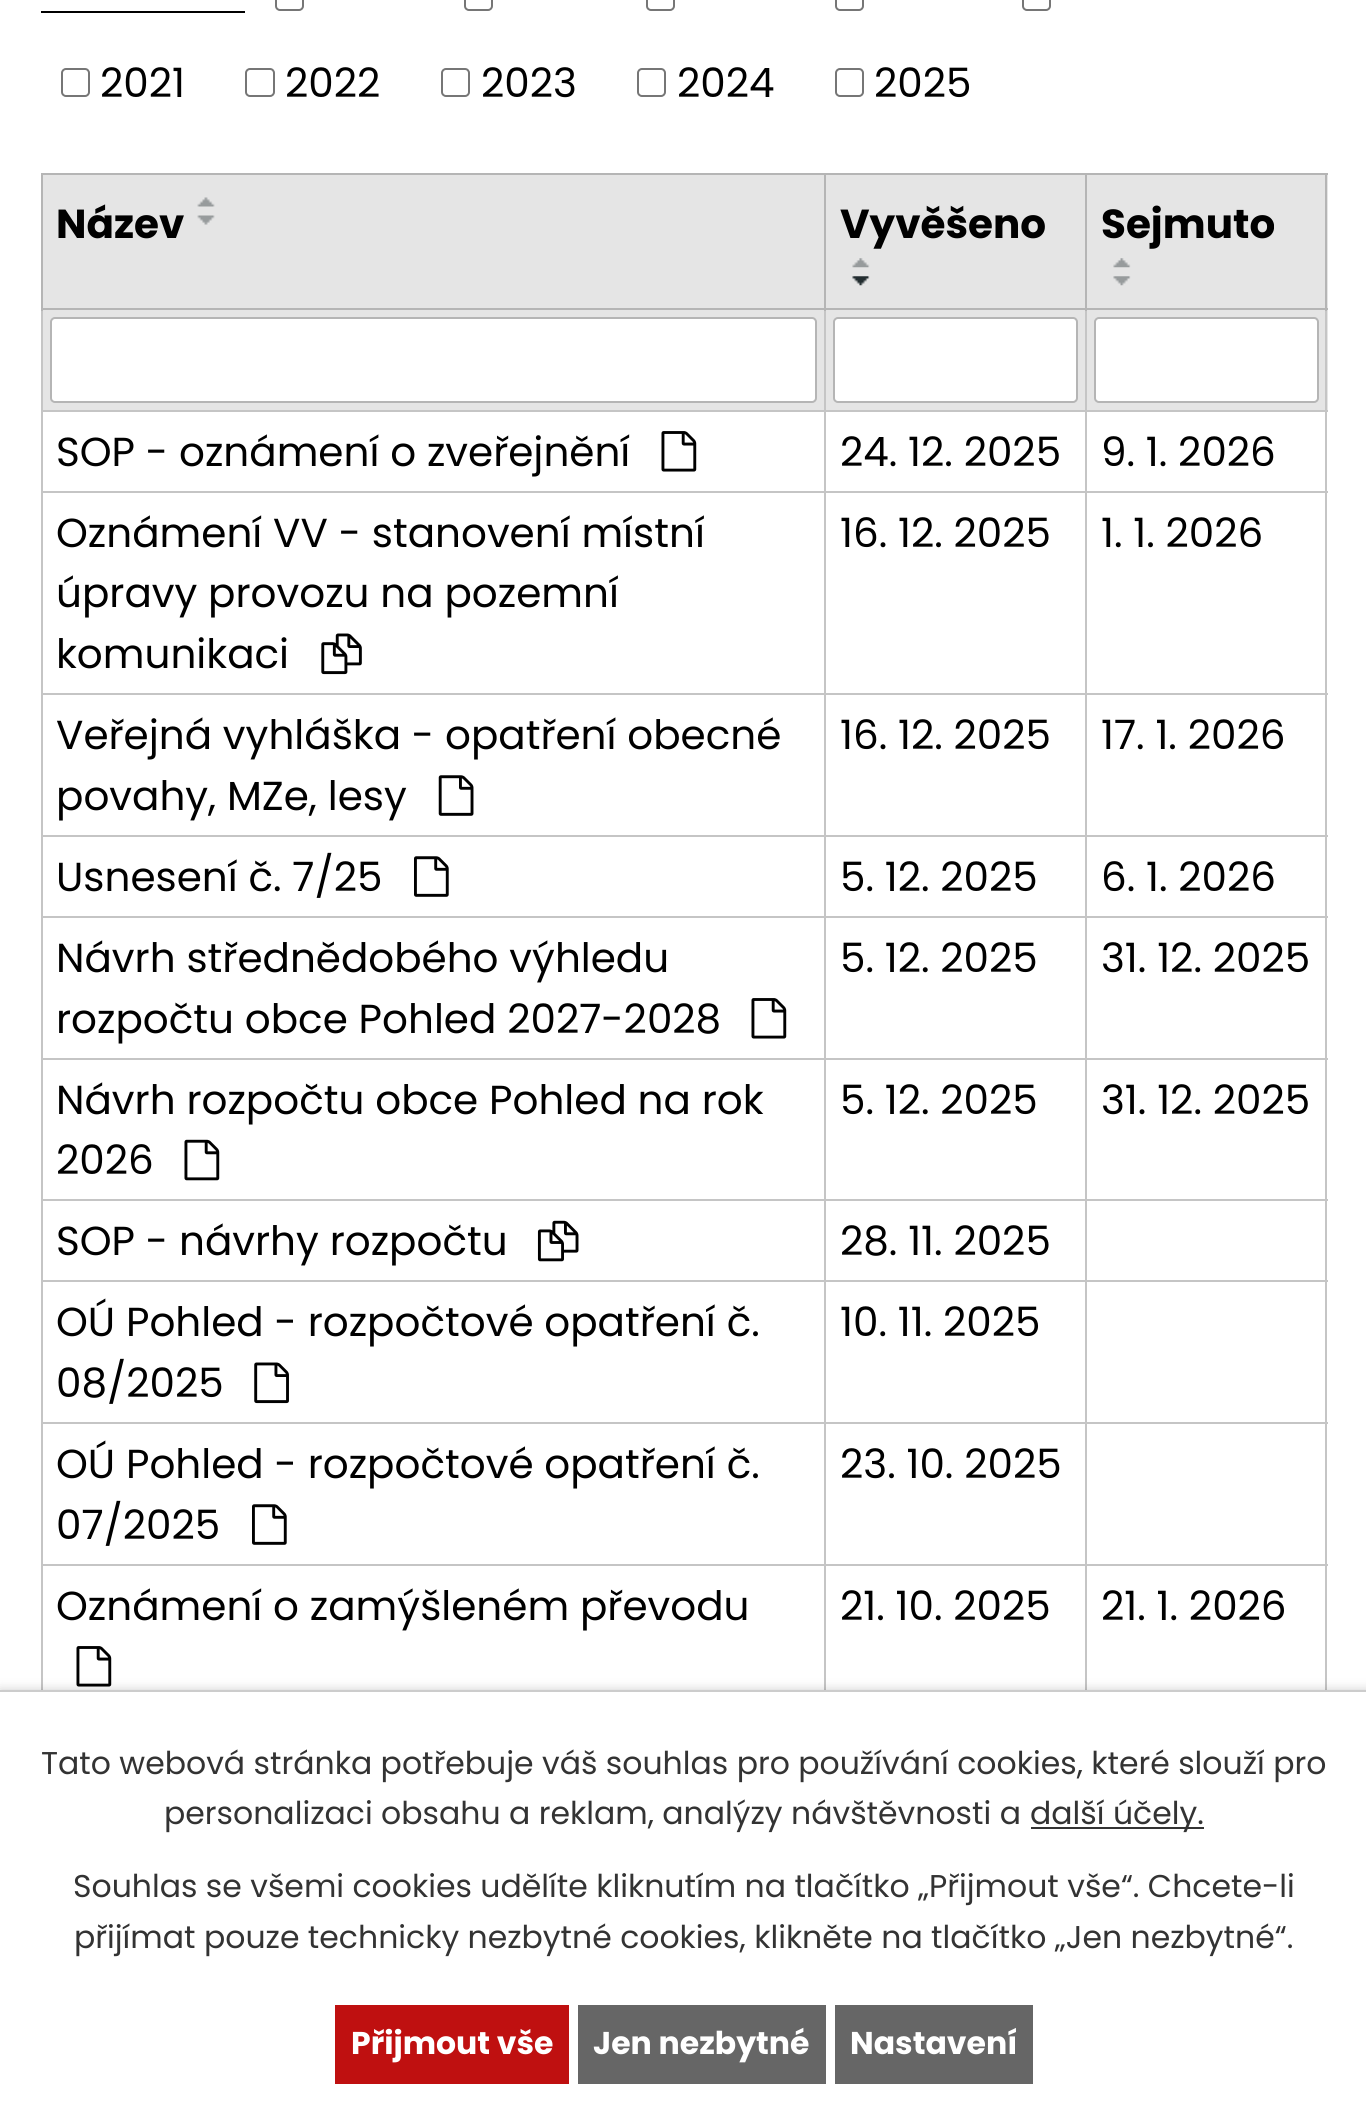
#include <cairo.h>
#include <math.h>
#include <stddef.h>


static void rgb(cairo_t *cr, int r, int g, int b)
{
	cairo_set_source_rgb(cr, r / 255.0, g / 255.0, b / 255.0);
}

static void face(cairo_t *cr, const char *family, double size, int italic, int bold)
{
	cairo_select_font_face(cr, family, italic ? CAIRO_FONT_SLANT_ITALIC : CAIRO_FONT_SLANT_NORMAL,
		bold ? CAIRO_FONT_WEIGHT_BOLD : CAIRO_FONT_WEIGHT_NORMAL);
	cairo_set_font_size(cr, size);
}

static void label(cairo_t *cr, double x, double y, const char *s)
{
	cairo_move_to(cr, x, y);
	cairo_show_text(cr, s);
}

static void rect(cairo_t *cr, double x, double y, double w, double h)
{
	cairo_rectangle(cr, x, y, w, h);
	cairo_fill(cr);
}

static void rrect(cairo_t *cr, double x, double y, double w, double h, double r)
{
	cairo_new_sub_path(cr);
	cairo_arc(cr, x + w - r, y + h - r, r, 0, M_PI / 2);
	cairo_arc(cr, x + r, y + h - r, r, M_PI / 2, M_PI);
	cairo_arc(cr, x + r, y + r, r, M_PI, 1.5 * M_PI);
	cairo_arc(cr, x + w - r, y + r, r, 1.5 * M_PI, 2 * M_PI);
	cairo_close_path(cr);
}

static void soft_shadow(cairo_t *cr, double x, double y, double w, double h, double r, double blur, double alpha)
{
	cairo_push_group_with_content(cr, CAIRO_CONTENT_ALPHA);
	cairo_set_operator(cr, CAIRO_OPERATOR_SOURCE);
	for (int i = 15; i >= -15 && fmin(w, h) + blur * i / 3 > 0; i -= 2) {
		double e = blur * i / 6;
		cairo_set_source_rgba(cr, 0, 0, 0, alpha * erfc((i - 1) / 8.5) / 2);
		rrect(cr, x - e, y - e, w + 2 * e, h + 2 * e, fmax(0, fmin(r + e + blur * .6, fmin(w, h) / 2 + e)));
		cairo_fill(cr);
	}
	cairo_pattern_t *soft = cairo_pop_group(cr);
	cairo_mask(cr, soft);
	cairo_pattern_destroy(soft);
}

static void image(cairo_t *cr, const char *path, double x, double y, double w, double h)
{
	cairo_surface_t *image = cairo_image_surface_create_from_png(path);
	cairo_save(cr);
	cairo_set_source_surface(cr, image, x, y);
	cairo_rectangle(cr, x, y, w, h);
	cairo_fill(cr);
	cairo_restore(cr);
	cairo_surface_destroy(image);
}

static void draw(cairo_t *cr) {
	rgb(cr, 255, 255, 255);
	cairo_paint(cr);
	rrect(cr, 276, -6, 27, 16, 4);
	rgb(cr, 118, 118, 118);
	cairo_stroke(cr);
	rrect(cr, 465, -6, 27, 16, 4);
	cairo_stroke(cr);
	rrect(cr, 647, -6, 27, 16, 4);
	cairo_stroke(cr);
	rrect(cr, 836, -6, 27, 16, 4);
	cairo_stroke(cr);
	rrect(cr, 1023, -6, 27, 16, 4);
	cairo_stroke(cr);
	rgb(cr, 0, 0, 0);
	rect(cr, 41, 11, 204, 2);
	rrect(cr, 62, 69, 27, 27, 4);
	rgb(cr, 118, 118, 118);
	cairo_stroke(cr);
	face(cr, "Poppins", 40.5, 0, 0);
	rgb(cr, 0, 0, 0);
	label(cr, 100, 97, "2021");
	rrect(cr, 246, 69, 28, 27, 4);
	rgb(cr, 118, 118, 118);
	cairo_stroke(cr);
	rgb(cr, 0, 0, 0);
	label(cr, 285, 97, "2022");
	rrect(cr, 442, 69, 27, 27, 4);
	rgb(cr, 118, 118, 118);
	cairo_stroke(cr);
	rgb(cr, 0, 0, 0);
	label(cr, 481, 97, "2023");
	rrect(cr, 638, 69, 27, 27, 4);
	rgb(cr, 118, 118, 118);
	cairo_stroke(cr);
	rgb(cr, 0, 0, 0);
	label(cr, 677, 97, "2024");
	rrect(cr, 836, 69, 27, 27, 4);
	rgb(cr, 118, 118, 118);
	cairo_stroke(cr);
	rgb(cr, 0, 0, 0);
	label(cr, 874, 97, "2025");
	rgb(cr, 229, 229, 229);
	rect(cr, 43, 175, 781, 133);
	rgb(cr, 181, 181, 181);
	rect(cr, 1085, 173, 243, 2);
	rgb(cr, 229, 229, 229);
	rect(cr, 1087, 175, 241, 133);
	rect(cr, 43, 310, 1285, 100);
	rgb(cr, 197, 197, 197);
	rect(cr, 1085, 410, 243, 2);
	rect(cr, 1085, 491, 243, 2);
	rect(cr, 1085, 693, 243, 2);
	rect(cr, 1085, 835, 243, 2);
	rect(cr, 1085, 916, 243, 2);
	rect(cr, 1085, 1058, 243, 2);
	rect(cr, 1085, 1199, 243, 2);
	rect(cr, 1085, 1280, 243, 2);
	rect(cr, 1085, 1422, 243, 2);
	rect(cr, 1085, 1564, 243, 2);
	rect(cr, 1325, 1564, 2, 126);
	rect(cr, 1325, 1422, 2, 144);
	rect(cr, 1325, 1280, 2, 144);
	rect(cr, 1325, 1199, 2, 84);
	rect(cr, 1325, 1058, 2, 144);
	rect(cr, 1325, 916, 2, 144);
	rect(cr, 1325, 835, 2, 83);
	rect(cr, 1325, 693, 2, 144);
	rect(cr, 1325, 491, 2, 204);
	rect(cr, 1325, 308, 2, 185);
	rgb(cr, 181, 181, 181);
	rect(cr, 1325, 173, 2, 138);
	rgb(cr, 197, 197, 197);
	rect(cr, 1085, 1564, 2, 126);
	rect(cr, 824, 1564, 263, 2);
	rect(cr, 1085, 1422, 2, 144);
	rect(cr, 824, 1422, 263, 2);
	rect(cr, 1085, 1280, 2, 144);
	rect(cr, 824, 1280, 263, 2);
	rect(cr, 1085, 1199, 2, 84);
	rect(cr, 824, 1199, 263, 2);
	rect(cr, 1085, 1058, 2, 144);
	rect(cr, 824, 1058, 263, 2);
	rect(cr, 1085, 916, 2, 144);
	rect(cr, 824, 916, 263, 2);
	rect(cr, 1085, 835, 2, 83);
	rect(cr, 824, 835, 263, 2);
	rect(cr, 1085, 693, 2, 144);
	rect(cr, 824, 693, 263, 2);
	rect(cr, 1085, 491, 2, 204);
	rect(cr, 824, 491, 263, 2);
	rect(cr, 1085, 410, 2, 83);
	rect(cr, 824, 410, 263, 2);
	rect(cr, 1085, 308, 2, 104);
	rgb(cr, 181, 181, 181);
	rect(cr, 1085, 308, 243, 2);
	rect(cr, 1085, 173, 2, 138);
	rect(cr, 824, 173, 263, 2);
	rgb(cr, 197, 197, 197);
	rect(cr, 824, 1564, 2, 126);
	rect(cr, 41, 1564, 785, 2);
	rect(cr, 824, 1422, 2, 144);
	rect(cr, 41, 1422, 785, 2);
	rect(cr, 824, 1280, 2, 144);
	rect(cr, 41, 1280, 785, 2);
	rect(cr, 824, 1199, 2, 84);
	rect(cr, 41, 1199, 785, 2);
	rect(cr, 824, 1058, 2, 144);
	rect(cr, 41, 1058, 785, 2);
	rect(cr, 824, 916, 2, 144);
	rect(cr, 41, 916, 785, 2);
	rect(cr, 824, 835, 2, 83);
	rect(cr, 41, 835, 785, 2);
	rect(cr, 824, 693, 2, 144);
	rect(cr, 41, 693, 785, 2);
	rect(cr, 824, 491, 2, 204);
	rect(cr, 41, 491, 785, 2);
	rect(cr, 824, 410, 2, 83);
	rect(cr, 41, 410, 785, 2);
	rect(cr, 824, 308, 2, 104);
	rgb(cr, 181, 181, 181);
	rect(cr, 824, 308, 263, 2);
	rect(cr, 824, 173, 2, 138);
	rect(cr, 41, 173, 785, 2);
	rgb(cr, 197, 197, 197);
	rect(cr, 41, 1564, 2, 126);
	rect(cr, 41, 1422, 2, 144);
	rect(cr, 41, 1280, 2, 144);
	rect(cr, 41, 1199, 2, 84);
	rect(cr, 41, 1058, 2, 144);
	rect(cr, 41, 916, 2, 144);
	rect(cr, 41, 835, 2, 83);
	rect(cr, 41, 693, 2, 144);
	rect(cr, 41, 491, 2, 204);
	rect(cr, 41, 308, 2, 185);
	rgb(cr, 181, 181, 181);
	rect(cr, 41, 308, 785, 2);
	rect(cr, 41, 173, 2, 138);
	face(cr, "Poppins", 40.5, 0, 1);
	rgb(cr, 0, 0, 0);
	label(cr, 56, 238, "Název");
	image(cr, "image0.png", 197, 197, 18, 10);
	image(cr, "image1.png", 197, 215, 18, 10);
	rgb(cr, 229, 229, 229);
	rect(cr, 826, 175, 259, 133);
	rgb(cr, 0, 0, 0);
	label(cr, 840, 238, "Vyvěšeno");
	image(cr, "image2.png", 852, 258, 18, 10);
	image(cr, "image3.png", 852, 276, 18, 10);
	label(cr, 1101, 238, "Sejmuto");
	image(cr, "image4.png", 1113, 258, 18, 10);
	image(cr, "image5.png", 1113, 276, 18, 10);
	rgb(cr, 255, 255, 255);
	rrect(cr, 51, 318, 765, 84, 4);
	cairo_fill_preserve(cr);
	rgb(cr, 181, 181, 181);
	cairo_stroke(cr);
	rgb(cr, 255, 255, 255);
	rrect(cr, 834, 318, 243, 84, 4);
	cairo_fill_preserve(cr);
	rgb(cr, 181, 181, 181);
	cairo_stroke(cr);
	rgb(cr, 255, 255, 255);
	rrect(cr, 1095, 318, 223, 84, 4);
	cairo_fill_preserve(cr);
	rgb(cr, 181, 181, 181);
	cairo_stroke(cr);
	face(cr, "Poppins", 40.5, 0, 0);
	rgb(cr, 0, 0, 0);
	label(cr, 56, 466, "SOP - oznámení o zveřejnění");
	image(cr, "image6.png", 661, 431, 36, 41);
	label(cr, 840, 466, "24. 12. 2025");
	label(cr, 1101, 466, "9. 1. 2026");
	label(cr, 56, 547, "Oznámení VV - stanovení místní");
	label(cr, 56, 607, "úpravy provozu na pozemní");
	label(cr, 56, 668, "komunikaci");
	image(cr, "image7.png", 321, 633, 41, 42);
	label(cr, 840, 547, "16. 12. 2025");
	label(cr, 1101, 547, "1. 1. 2026");
	label(cr, 56, 749, "Veřejná vyhláška - opatření obecné");
	label(cr, 56, 810, "povahy, MZe, lesy");
	image(cr, "image8.png", 438, 775, 36, 41);
	label(cr, 840, 749, "16. 12. 2025");
	label(cr, 1101, 749, "17. 1. 2026");
	label(cr, 56, 891, "Usnesení č. 7/25");
	image(cr, "image9.png", 414, 856, 35, 41);
	label(cr, 840, 891, "5. 12. 2025");
	label(cr, 1101, 891, "6. 1. 2026");
	label(cr, 56, 972, "Návrh střednědobého výhledu");
	label(cr, 56, 1033, "rozpočtu obce Pohled 2027-2028");
	image(cr, "image6.png", 751, 998, 36, 41);
	label(cr, 840, 972, "5. 12. 2025");
	label(cr, 1101, 972, "31. 12. 2025");
	label(cr, 56, 1114, "Návrh rozpočtu obce Pohled na rok");
	label(cr, 56, 1174, "2026");
	image(cr, "image10.png", 184, 1139, 36, 42);
	label(cr, 840, 1114, "5. 12. 2025");
	label(cr, 1101, 1114, "31. 12. 2025");
	label(cr, 56, 1255, "SOP - návrhy rozpočtu");
	image(cr, "image11.png", 537, 1220, 42, 42);
	label(cr, 840, 1255, "28. 11. 2025");
	label(cr, 56, 1336, "OÚ Pohled - rozpočtové opatření č.");
	label(cr, 56, 1397, "08/2025");
	image(cr, "image12.png", 254, 1362, 35, 42);
	label(cr, 840, 1336, "10. 11. 2025");
	label(cr, 56, 1478, "OÚ Pohled - rozpočtové opatření č.");
	label(cr, 56, 1539, "07/2025");
	image(cr, "image9.png", 252, 1504, 35, 41);
	label(cr, 840, 1478, "23. 10. 2025");
	label(cr, 56, 1620, "Oznámení o zamýšleném převodu");
	image(cr, "image6.png", 76, 1646, 36, 41);
	label(cr, 840, 1620, "21. 10. 2025");
	label(cr, 1101, 1620, "21. 1. 2026");
	rgb(cr, 0, 0, 0);
	soft_shadow(cr, 0, 1690, 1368, 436, 0, 5.5, 0.2);
	rgb(cr, 255, 255, 255);
	rect(cr, 0, 1692, 1366, 433);
	rgb(cr, 204, 204, 204);
	rect(cr, 0, 1690, 1366, 2);
	face(cr, "Poppins", 31.5, 0, 0);
	rgb(cr, 51, 51, 51);
	label(cr, 41, 1774, "Tato webová stránka potřebuje váš souhlas pro používání cookies, které slouží pro");
	label(cr, 164, 1824, "personalizaci obsahu a reklam, analýzy návštěvnosti a");
	rect(cr, 1031, 1827, 173, 2);
	label(cr, 1030, 1824, "další účely.");
	label(cr, 73, 1897, "Souhlas se všemi cookies udělíte kliknutím na tlačítko „Přijmout vše“. Chcete-li");
	label(cr, 74, 1948, "přijímat pouze technicky nezbytné cookies, klikněte na tlačítko „Jen nezbytné“.");
	rgb(cr, 191, 16, 16);
	rect(cr, 335, 2005, 234, 79);
	face(cr, "Poppins", 31.5, 0, 1);
	rgb(cr, 255, 255, 255);
	label(cr, 351, 2054, "Přijmout vše");
	rgb(cr, 102, 102, 102);
	rect(cr, 578, 2005, 248, 79);
	rgb(cr, 255, 255, 255);
	label(cr, 593, 2054, "Jen nezbytné");
	rgb(cr, 102, 102, 102);
	rect(cr, 835, 2005, 198, 79);
	rgb(cr, 255, 255, 255);
	label(cr, 850, 2054, "Nastavení");
}

int main(void) {
	cairo_surface_t *surface = cairo_image_surface_create(CAIRO_FORMAT_RGB24, 1366, 2125);
	cairo_t *cr = cairo_create(surface);
	cairo_font_options_t *options = cairo_font_options_create();
	cairo_font_options_set_hint_metrics(options, CAIRO_HINT_METRICS_OFF);
	cairo_font_options_set_hint_style(options, CAIRO_HINT_STYLE_NONE);
	cairo_set_font_options(cr, options);
	cairo_set_miter_limit(cr, 4);
	draw(cr);
	cairo_surface_write_to_png(surface, "render.png");
	cairo_font_options_destroy(options);
	cairo_destroy(cr);
	cairo_surface_destroy(surface);
	return 0;
}
